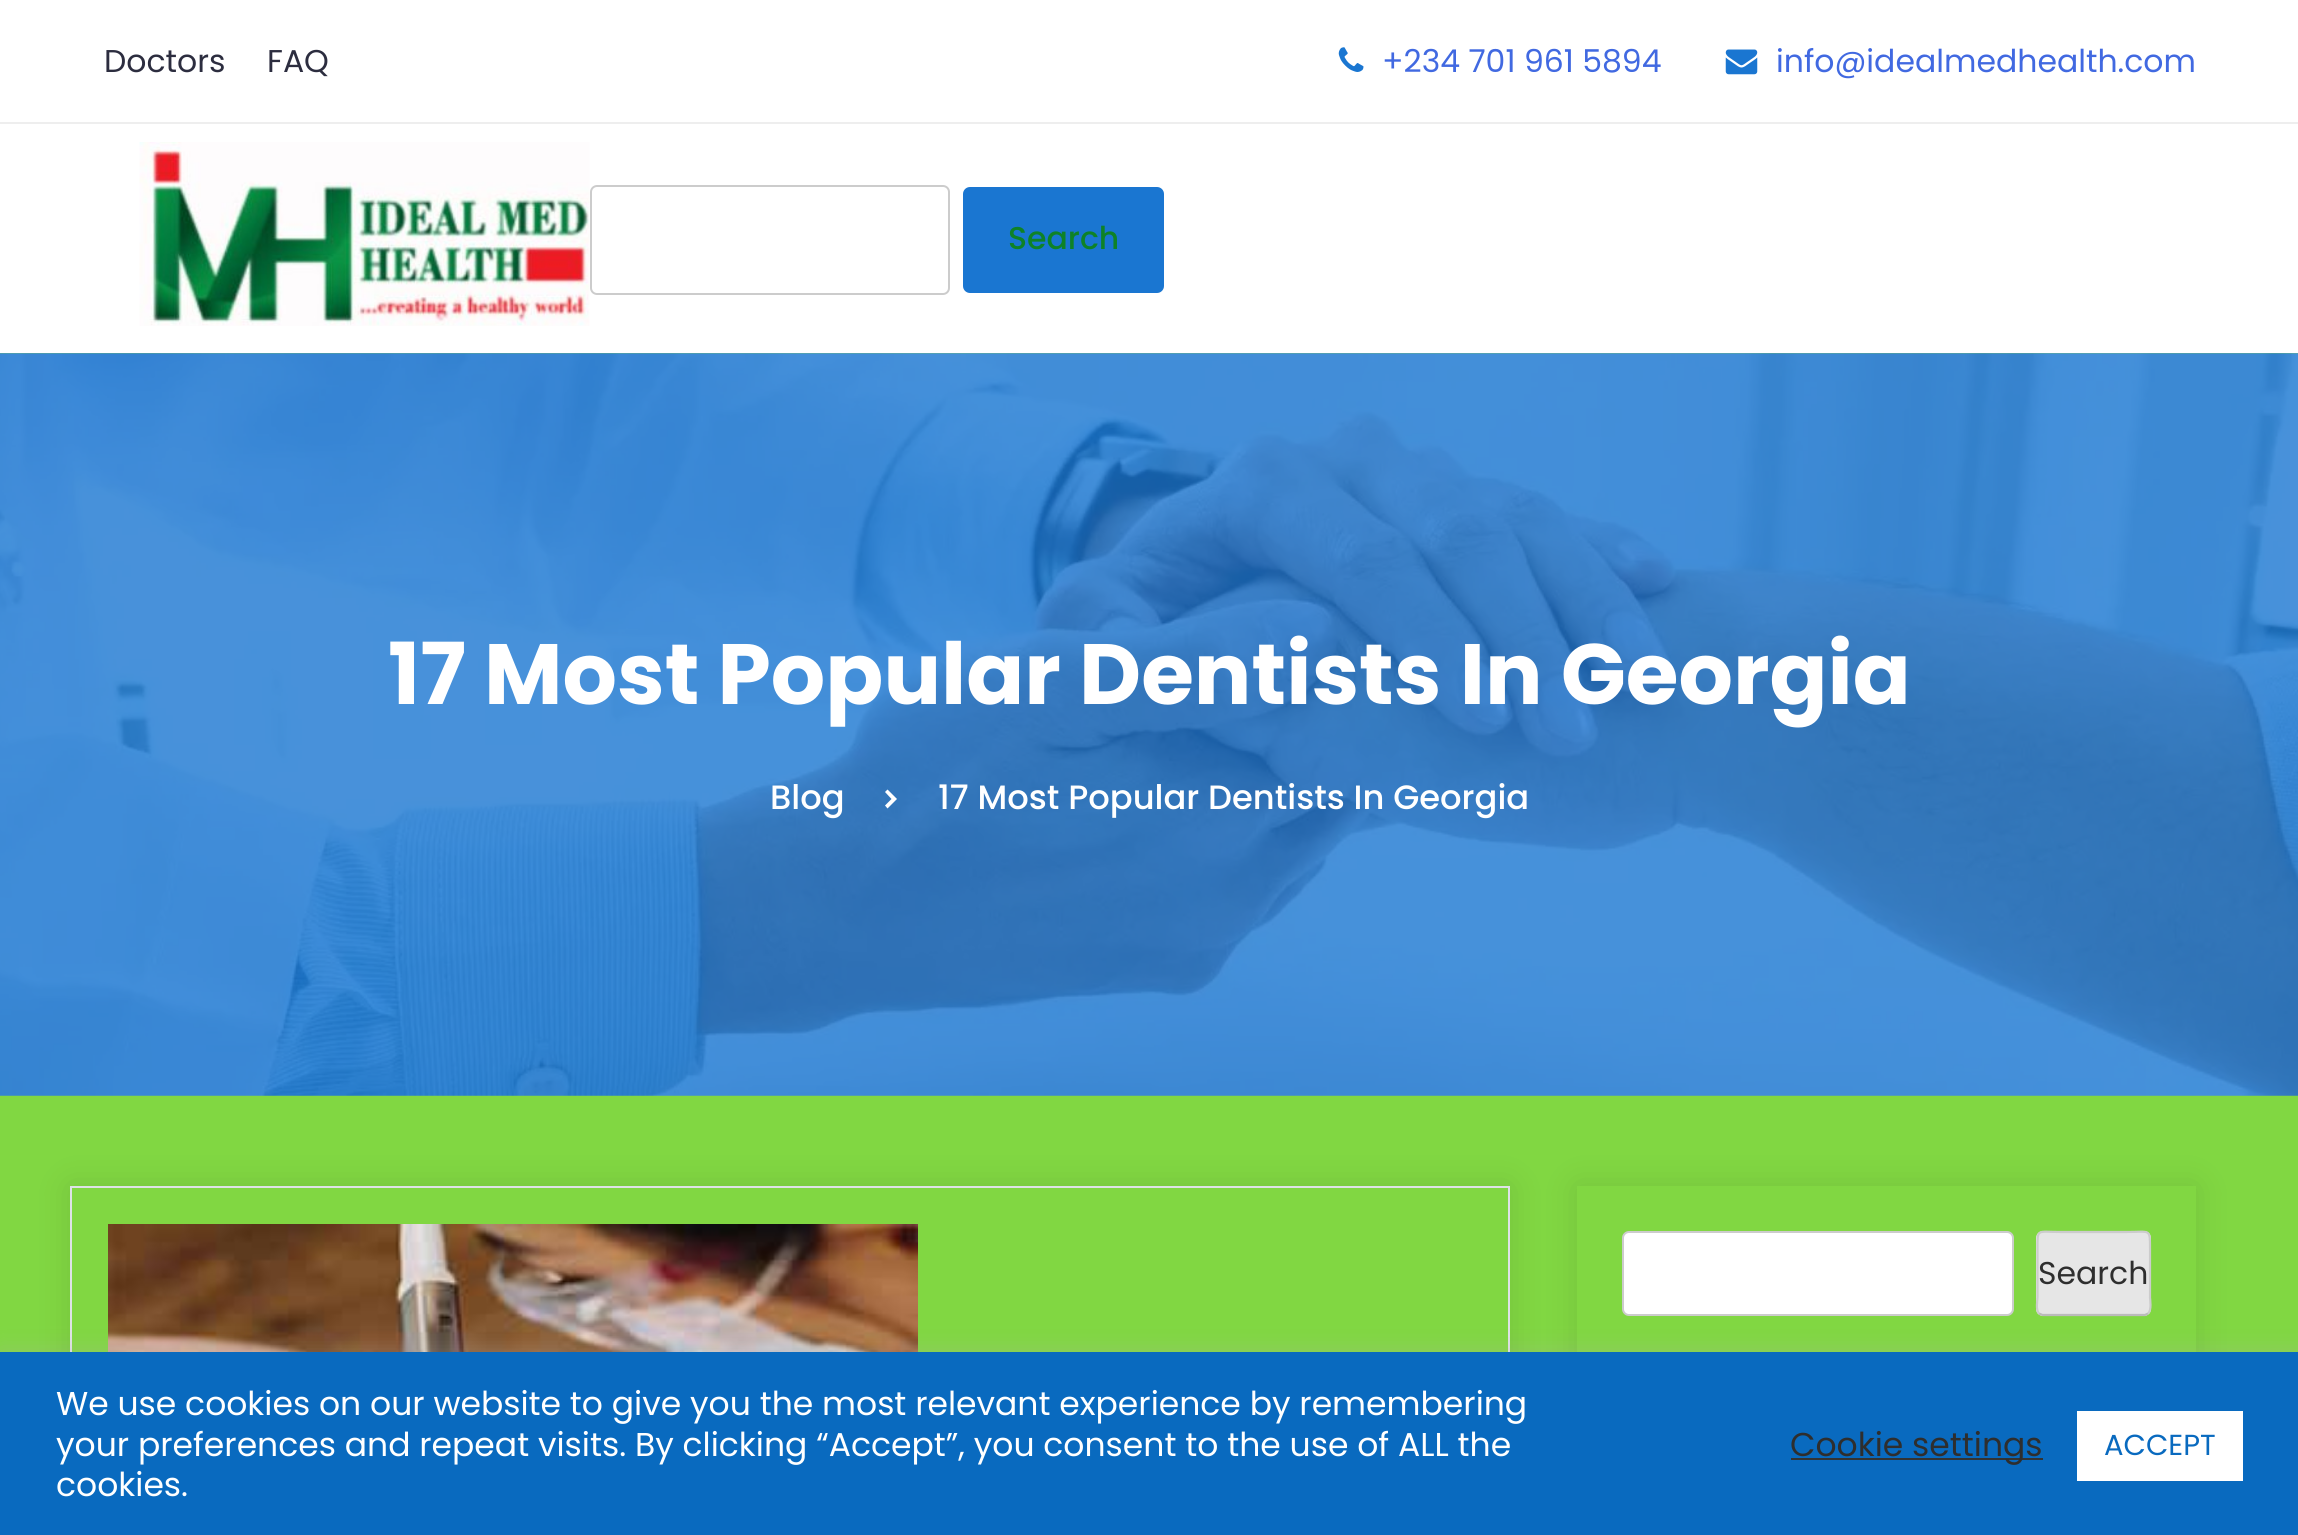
#include <cairo.h>
#include <math.h>
#include <stddef.h>


static void rgb(cairo_t *cr, int r, int g, int b)
{
	cairo_set_source_rgb(cr, r / 255.0, g / 255.0, b / 255.0);
}

static void face(cairo_t *cr, const char *family, double size, int italic, int bold)
{
	cairo_select_font_face(cr, family, italic ? CAIRO_FONT_SLANT_ITALIC : CAIRO_FONT_SLANT_NORMAL,
		bold ? CAIRO_FONT_WEIGHT_BOLD : CAIRO_FONT_WEIGHT_NORMAL);
	cairo_set_font_size(cr, size);
}

static void label(cairo_t *cr, double x, double y, const char *s)
{
	cairo_move_to(cr, x, y);
	cairo_show_text(cr, s);
}

static void rect(cairo_t *cr, double x, double y, double w, double h)
{
	cairo_rectangle(cr, x, y, w, h);
	cairo_fill(cr);
}

static void rrect(cairo_t *cr, double x, double y, double w, double h, double r)
{
	cairo_new_sub_path(cr);
	cairo_arc(cr, x + w - r, y + h - r, r, 0, M_PI / 2);
	cairo_arc(cr, x + r, y + h - r, r, M_PI / 2, M_PI);
	cairo_arc(cr, x + r, y + r, r, M_PI, 1.5 * M_PI);
	cairo_arc(cr, x + w - r, y + r, r, 1.5 * M_PI, 2 * M_PI);
	cairo_close_path(cr);
}

static void soft_shadow(cairo_t *cr, double x, double y, double w, double h, double r, double blur, double alpha)
{
	cairo_push_group_with_content(cr, CAIRO_CONTENT_ALPHA);
	cairo_set_operator(cr, CAIRO_OPERATOR_SOURCE);
	for (int i = 15; i >= -15 && fmin(w, h) + blur * i / 3 > 0; i -= 2) {
		double e = blur * i / 6;
		cairo_set_source_rgba(cr, 0, 0, 0, alpha * erfc((i - 1) / 8.5) / 2);
		rrect(cr, x - e, y - e, w + 2 * e, h + 2 * e, fmax(0, fmin(r + e + blur * .6, fmin(w, h) / 2 + e)));
		cairo_fill(cr);
	}
	cairo_pattern_t *soft = cairo_pop_group(cr);
	cairo_mask(cr, soft);
	cairo_pattern_destroy(soft);
}

static void image(cairo_t *cr, const char *path, double x, double y, double w, double h)
{
	cairo_surface_t *image = cairo_image_surface_create_from_png(path);
	cairo_save(cr);
	cairo_set_source_surface(cr, image, x, y);
	cairo_rectangle(cr, x, y, w, h);
	cairo_fill(cr);
	cairo_restore(cr);
	cairo_surface_destroy(image);
}

static void draw(cairo_t *cr) {
	rgb(cr, 129, 215, 66);
	cairo_paint(cr);
	rgb(cr, 255, 255, 255);
	rect(cr, 0, 0, 2298, 353);
	rgb(cr, 238, 238, 238);
	rect(cr, 0, 122, 2298, 2);
	face(cr, "Poppins", 31.5, 0, 0);
	rgb(cr, 44, 45, 63);
	label(cr, 104, 72, "Doctors");
	label(cr, 267, 72, "FAQ");
	image(cr, "image0.png", 1338, 47, 26, 25);
	rgb(cr, 65, 105, 225);
	label(cr, 1382, 72, "+234 701 961 5894");
	image(cr, "image1.png", 1725, 49, 33, 26);
	label(cr, 1776, 72, "info@idealmedhealth.com");
	image(cr, "image2.png", 139, 142, 451, 184);
	rrect(cr, 591, 186, 358, 108, 6);
	rgb(cr, 204, 204, 204);
	cairo_stroke(cr);
	rgb(cr, 26, 118, 209);
	rrect(cr, 962, 186, 203, 108, 8);
	cairo_fill_preserve(cr);
	rgb(cr, 255, 255, 255);
	cairo_stroke(cr);
	face(cr, "Poppins Medium", 31.5, 0, 0);
	rgb(cr, 14, 130, 39);
	label(cr, 1008, 249, "Search");
	image(cr, "image3.png", 0, 353, 2298, 743);
	face(cr, "Poppins", 85.5, 0, 1);
	rgb(cr, 255, 255, 255);
	label(cr, 388, 704, "17 Most Popular Dentists In Georgia");
	face(cr, "Poppins Medium", 33.75, 0, 0);
	label(cr, 770, 809, "Blog");
	cairo_new_path(cr);
	cairo_move_to(cr, 887.5, 808.5);
	cairo_line_to(cr, 897, 799);
	cairo_line_to(cr, 887.5, 789.5);
	cairo_line_to(cr, 885, 792);
	cairo_line_to(cr, 891.5, 799);
	cairo_line_to(cr, 885, 805.5);
	cairo_close_path(cr);
	cairo_fill(cr);
	label(cr, 938, 809, "17 Most Popular Dentists In Georgia");
	cairo_save(cr);
	cairo_set_fill_rule(cr, CAIRO_FILL_RULE_EVEN_ODD);
	cairo_new_path(cr);
	cairo_move_to(cr, 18, 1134);
	cairo_line_to(cr, 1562, 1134);
	cairo_line_to(cr, 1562, 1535);
	cairo_line_to(cr, 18, 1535);
	cairo_close_path(cr);
	cairo_move_to(cr, 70, 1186);
	cairo_line_to(cr, 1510, 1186);
	cairo_line_to(cr, 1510, 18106);
	cairo_line_to(cr, 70, 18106);
	cairo_close_path(cr);
	cairo_clip(cr);
	rgb(cr, 0, 0, 0);
	soft_shadow(cr, 70, 1186, 1440, 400, 0, 17, 0.1);
	cairo_restore(cr);
	cairo_rectangle(cr, 71, 1187, 1438, 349);
	rgb(cr, 222, 226, 230);
	cairo_stroke(cr);
	image(cr, "image4.png", 108, 1224, 810, 128);
	cairo_save(cr);
	cairo_set_fill_rule(cr, CAIRO_FILL_RULE_EVEN_ODD);
	cairo_new_path(cr);
	cairo_move_to(cr, 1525, 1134);
	cairo_line_to(cr, 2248, 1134);
	cairo_line_to(cr, 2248, 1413);
	cairo_line_to(cr, 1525, 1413);
	cairo_close_path(cr);
	cairo_move_to(cr, 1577, 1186);
	cairo_line_to(cr, 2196, 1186);
	cairo_line_to(cr, 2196, 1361);
	cairo_line_to(cr, 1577, 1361);
	cairo_close_path(cr);
	cairo_clip(cr);
	rgb(cr, 0, 0, 0);
	soft_shadow(cr, 1577, 1186, 619, 175, 0, 17, 0.1);
	cairo_restore(cr);
	rgb(cr, 255, 255, 255);
	rrect(cr, 1623, 1232, 390, 83, 6);
	cairo_fill_preserve(cr);
	rgb(cr, 204, 204, 204);
	cairo_stroke(cr);
	rgb(cr, 230, 230, 230);
	rrect(cr, 2036, 1231, 115, 85, 7);
	cairo_fill(cr);
	cairo_new_path(cr);
	cairo_move_to(cr, 2148, 1313.5);
	cairo_line_to(cr, 2145, 1315);
	cairo_line_to(cr, 2042.5, 1315);
	cairo_line_to(cr, 2039, 1313.5);
	rgb(cr, 187, 187, 187);
	cairo_set_line_width(cr, 2.2);
	cairo_stroke(cr);
	cairo_new_path(cr);
	cairo_move_to(cr, 2039, 1313.5);
	cairo_curve_to(cr, 2035.5, 1310, 2037.5, 1299.5, 2037.5, 1297.5);
	cairo_line_to(cr, 2037.5, 1249.5);
	cairo_curve_to(cr, 2037.5, 1228, 2036.5, 1232, 2060, 1232);
	cairo_line_to(cr, 2127.5, 1232);
	cairo_curve_to(cr, 2150.5, 1232, 2150, 1228, 2150, 1249.5);
	cairo_line_to(cr, 2150, 1297.5);
	cairo_curve_to(cr, 2150, 1299.5, 2152, 1310, 2148, 1313.5);
	rgb(cr, 204, 204, 204);
	cairo_stroke(cr);
	face(cr, "Poppins", 31.5, 0, 0);
	rgb(cr, 46, 46, 46);
	label(cr, 2038, 1284, "Search");
	rgb(cr, 172, 171, 171);
	soft_shadow(cr, 0, 1350, 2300, 185, 0, 11, 0.3);
	rgb(cr, 9, 106, 191);
	rect(cr, 0, 1352, 2298, 183);
	face(cr, "Poppins", 33, 0, 0);
	rgb(cr, 255, 255, 255);
	label(cr, 56, 1415, "We use cookies on our website to give you the most relevant experience by remembering");
	label(cr, 56, 1456, "your preferences and repeat visits. By clicking “Accept”, you consent to the use of ALL the");
	label(cr, 56, 1496, "cookies.");
	rgb(cr, 51, 51, 51);
	rect(cr, 1791, 1458, 252, 2);
	rgb(cr, 46, 46, 46);
	label(cr, 1790, 1456, "Cookie settings");
	rgb(cr, 255, 255, 255);
	rect(cr, 2077, 1411, 166, 70);
	face(cr, "Poppins", 29, 0, 0);
	rgb(cr, 9, 106, 191);
	label(cr, 2104, 1455, "ACCEPT");
}

int main(void) {
	cairo_surface_t *surface = cairo_image_surface_create(CAIRO_FORMAT_RGB24, 2298, 1535);
	cairo_t *cr = cairo_create(surface);
	cairo_font_options_t *options = cairo_font_options_create();
	cairo_font_options_set_hint_metrics(options, CAIRO_HINT_METRICS_OFF);
	cairo_font_options_set_hint_style(options, CAIRO_HINT_STYLE_NONE);
	cairo_set_font_options(cr, options);
	cairo_set_miter_limit(cr, 4);
	draw(cr);
	cairo_surface_write_to_png(surface, "render.png");
	cairo_font_options_destroy(options);
	cairo_destroy(cr);
	cairo_surface_destroy(surface);
	return 0;
}
